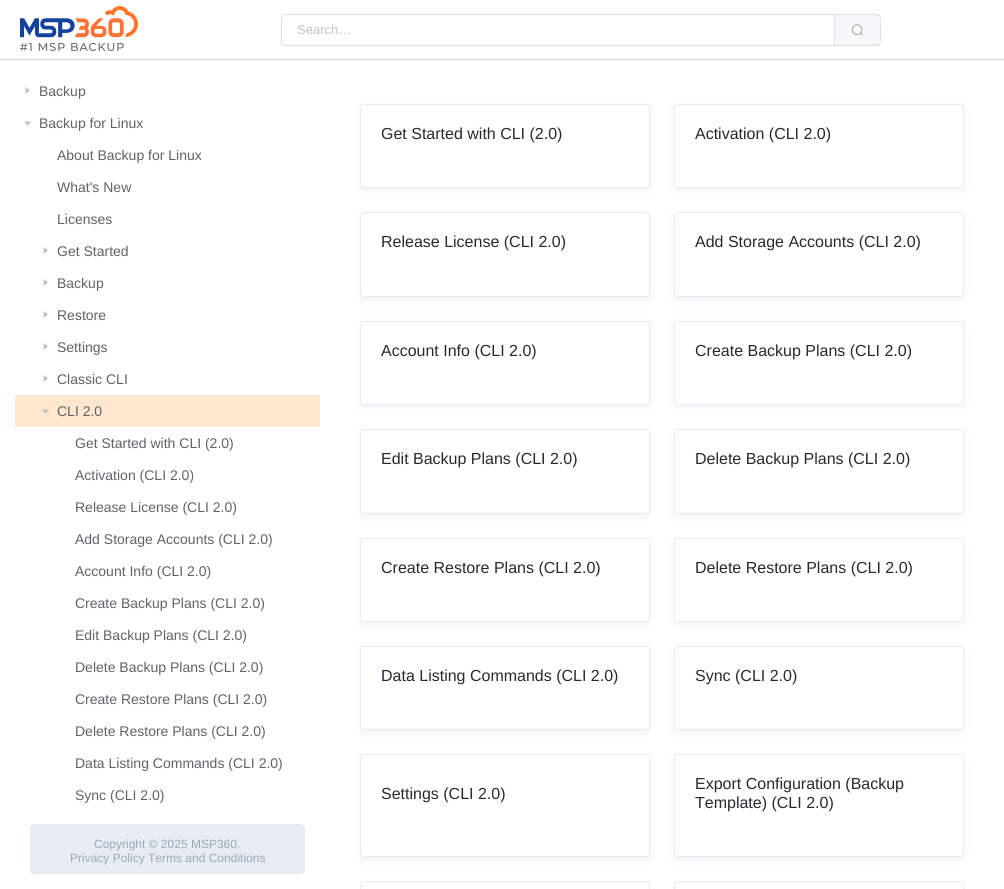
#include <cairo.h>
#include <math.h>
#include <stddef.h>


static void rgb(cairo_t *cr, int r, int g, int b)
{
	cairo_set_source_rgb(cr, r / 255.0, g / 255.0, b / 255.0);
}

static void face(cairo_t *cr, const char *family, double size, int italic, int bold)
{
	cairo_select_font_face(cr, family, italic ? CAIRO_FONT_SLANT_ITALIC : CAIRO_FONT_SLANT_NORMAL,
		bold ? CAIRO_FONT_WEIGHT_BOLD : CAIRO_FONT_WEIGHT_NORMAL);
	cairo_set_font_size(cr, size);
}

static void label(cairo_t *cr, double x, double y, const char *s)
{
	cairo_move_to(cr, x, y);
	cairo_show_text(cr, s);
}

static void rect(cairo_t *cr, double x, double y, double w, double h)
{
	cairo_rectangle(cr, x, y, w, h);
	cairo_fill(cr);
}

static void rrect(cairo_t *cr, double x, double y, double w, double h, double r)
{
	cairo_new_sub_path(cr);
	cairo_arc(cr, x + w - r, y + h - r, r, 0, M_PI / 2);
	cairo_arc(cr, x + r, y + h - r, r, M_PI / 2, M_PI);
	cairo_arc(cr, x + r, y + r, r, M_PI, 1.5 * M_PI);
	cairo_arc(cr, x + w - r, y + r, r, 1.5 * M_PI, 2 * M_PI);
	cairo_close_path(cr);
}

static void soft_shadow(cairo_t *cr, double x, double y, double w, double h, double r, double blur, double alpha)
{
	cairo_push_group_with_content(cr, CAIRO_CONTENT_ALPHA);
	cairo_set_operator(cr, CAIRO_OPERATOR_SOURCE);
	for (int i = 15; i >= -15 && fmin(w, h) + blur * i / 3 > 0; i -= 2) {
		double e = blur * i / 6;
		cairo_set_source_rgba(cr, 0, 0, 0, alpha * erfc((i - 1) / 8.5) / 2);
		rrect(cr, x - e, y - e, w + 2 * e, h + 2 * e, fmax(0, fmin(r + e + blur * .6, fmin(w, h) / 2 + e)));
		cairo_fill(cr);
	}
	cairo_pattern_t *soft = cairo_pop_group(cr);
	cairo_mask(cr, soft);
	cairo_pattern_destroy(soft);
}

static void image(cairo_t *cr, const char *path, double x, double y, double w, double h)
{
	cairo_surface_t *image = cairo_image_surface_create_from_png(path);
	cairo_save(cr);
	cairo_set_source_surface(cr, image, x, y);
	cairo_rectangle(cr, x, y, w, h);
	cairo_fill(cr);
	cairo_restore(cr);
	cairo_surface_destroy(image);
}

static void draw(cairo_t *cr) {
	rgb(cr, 255, 255, 255);
	cairo_paint(cr);
	cairo_save(cr);
	cairo_rectangle(cr, 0, 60, 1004, 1);
	cairo_clip(cr);
	rgb(cr, 116, 129, 141);
	soft_shadow(cr, 0, 1, 1004, 60, 0, 0.5, 0.1);
	cairo_restore(cr);
	rgb(cr, 212, 218, 223);
	rect(cr, 0, 59, 1004, 1);
	image(cr, "image0.png", 20, 6, 118, 45);
	cairo_new_path(cr);
	cairo_move_to(cr, 285, 14.5);
	cairo_line_to(cr, 834.5, 14.5);
	cairo_line_to(cr, 834.5, 45.5);
	cairo_line_to(cr, 285, 45.5);
	cairo_curve_to(cr, 283, 45.5, 281.5, 44, 281.5, 42);
	cairo_line_to(cr, 281.5, 18);
	cairo_curve_to(cr, 281.5, 16, 283, 14.5, 285, 14.5);
	cairo_close_path(cr);
	rgb(cr, 220, 223, 230);
	cairo_set_line_width(cr, 1);
	cairo_stroke(cr);
	face(cr, "Liberation Sans", 13, 0, 0);
	rgb(cr, 192, 196, 204);
	label(cr, 297, 34, "Search…");
	rgb(cr, 245, 247, 250);
	cairo_new_path(cr);
	cairo_move_to(cr, 835, 14);
	cairo_line_to(cr, 877, 14);
	cairo_curve_to(cr, 879, 14, 881, 16, 881, 18);
	cairo_line_to(cr, 881, 42);
	cairo_curve_to(cr, 881, 44, 879, 46, 877, 46);
	cairo_line_to(cr, 835, 46);
	cairo_close_path(cr);
	cairo_fill(cr);
	rgb(cr, 220, 223, 230);
	cairo_set_fill_rule(cr, CAIRO_FILL_RULE_EVEN_ODD);
	cairo_new_path(cr);
	cairo_move_to(cr, 835, 14);
	cairo_line_to(cr, 877, 14);
	cairo_curve_to(cr, 879, 14, 881, 16, 881, 18);
	cairo_line_to(cr, 881, 42);
	cairo_curve_to(cr, 881, 44, 879, 46, 877, 46);
	cairo_line_to(cr, 835, 46);
	cairo_close_path(cr);
	cairo_move_to(cr, 835, 15);
	cairo_line_to(cr, 870, 15);
	cairo_curve_to(cr, 884, 15, 880, 16, 880, 30);
	cairo_curve_to(cr, 880, 44, 884, 45, 870, 45);
	cairo_line_to(cr, 835, 45);
	cairo_close_path(cr);
	cairo_fill(cr);
	image(cr, "image1.png", 851, 24, 12, 12);
	rgb(cr, 192, 196, 204);
	cairo_set_fill_rule(cr, CAIRO_FILL_RULE_WINDING);
	cairo_new_path(cr);
	cairo_move_to(cr, 25.5, 87);
	cairo_line_to(cr, 25.5, 94);
	cairo_line_to(cr, 30, 90.5);
	cairo_close_path(cr);
	cairo_move_to(cr, 31, 121.5);
	cairo_line_to(cr, 24, 121.5);
	cairo_line_to(cr, 27.5, 126);
	cairo_close_path(cr);
	cairo_fill(cr);
	face(cr, "Liberation Sans", 14, 0, 0);
	rgb(cr, 96, 98, 102);
	label(cr, 39, 96, "Backup");
	label(cr, 39, 128, "Backup for Linux");
	label(cr, 57, 160, "About Backup for Linux");
	label(cr, 57, 192, "What's New");
	label(cr, 57, 224, "Licenses");
	rgb(cr, 192, 196, 204);
	cairo_new_path(cr);
	cairo_move_to(cr, 43.5, 247);
	cairo_line_to(cr, 43.5, 254);
	cairo_line_to(cr, 48, 250.5);
	cairo_close_path(cr);
	cairo_move_to(cr, 43.5, 279);
	cairo_line_to(cr, 43.5, 286);
	cairo_line_to(cr, 48, 282.5);
	cairo_close_path(cr);
	cairo_fill(cr);
	rgb(cr, 96, 98, 102);
	label(cr, 57, 256, "Get Started");
	label(cr, 57, 288, "Backup");
	rgb(cr, 192, 196, 204);
	cairo_new_path(cr);
	cairo_move_to(cr, 43.5, 311);
	cairo_line_to(cr, 43.5, 318);
	cairo_line_to(cr, 48, 314.5);
	cairo_close_path(cr);
	cairo_move_to(cr, 43.5, 343);
	cairo_line_to(cr, 43.5, 350);
	cairo_line_to(cr, 48, 346.5);
	cairo_close_path(cr);
	cairo_fill(cr);
	rgb(cr, 96, 98, 102);
	label(cr, 57, 320, "Restore");
	label(cr, 57, 352, "Settings");
	rgb(cr, 253, 231, 207);
	rect(cr, 15, 395, 305, 32);
	rgb(cr, 192, 196, 204);
	cairo_new_path(cr);
	cairo_move_to(cr, 43.5, 375);
	cairo_line_to(cr, 43.5, 382);
	cairo_line_to(cr, 48, 378.5);
	cairo_close_path(cr);
	cairo_move_to(cr, 49, 409.5);
	cairo_line_to(cr, 42, 409.5);
	cairo_line_to(cr, 45.5, 414);
	cairo_close_path(cr);
	cairo_fill(cr);
	rgb(cr, 96, 98, 102);
	label(cr, 57, 384, "Classic CLI");
	label(cr, 57, 416, "CLI 2.0");
	label(cr, 75, 448, "Get Started with CLI (2.0)");
	label(cr, 75, 480, "Activation (CLI 2.0)");
	label(cr, 75, 512, "Release License (CLI 2.0)");
	label(cr, 75, 544, "Add Storage Accounts (CLI 2.0)");
	label(cr, 75, 576, "Account Info (CLI 2.0)");
	label(cr, 75, 608, "Create Backup Plans (CLI 2.0)");
	label(cr, 75, 640, "Edit Backup Plans (CLI 2.0)");
	label(cr, 75, 672, "Delete Backup Plans (CLI 2.0)");
	label(cr, 75, 704, "Create Restore Plans (CLI 2.0)");
	label(cr, 75, 736, "Delete Restore Plans (CLI 2.0)");
	label(cr, 75, 768, "Data Listing Commands (CLI 2.0)");
	label(cr, 75, 800, "Sync (CLI 2.0)");
	rgb(cr, 230, 236, 241);
	rrect(cr, 30, 824, 275, 50, 4);
	cairo_fill(cr);
	face(cr, "Liberation Sans", 12, 0, 0);
	rgb(cr, 157, 170, 182);
	label(cr, 94, 848, "Copyright © 2025 MSP360.");
	label(cr, 70, 862, "Privacy Policy Terms and Conditions");
	rgb(cr, 116, 129, 141);
	soft_shadow(cr, 360, 107, 290, 84, 3, 4, 0.1);
	rgb(cr, 255, 255, 255);
	rrect(cr, 360.5, 104.5, 289, 83, 2.5);
	cairo_fill_preserve(cr);
	rgb(cr, 230, 236, 241);
	cairo_stroke(cr);
	face(cr, "Liberation Sans", 16, 0, 0);
	rgb(cr, 36, 42, 49);
	label(cr, 381, 139, "Get Started with CLI (2.0)");
	rgb(cr, 116, 129, 141);
	soft_shadow(cr, 674, 107, 290, 84, 3, 4, 0.1);
	rgb(cr, 255, 255, 255);
	rrect(cr, 674.5, 104.5, 289, 83, 2.5);
	cairo_fill_preserve(cr);
	rgb(cr, 230, 236, 241);
	cairo_stroke(cr);
	rgb(cr, 36, 42, 49);
	label(cr, 695, 139, "Activation (CLI 2.0)");
	rgb(cr, 116, 129, 141);
	soft_shadow(cr, 360, 215, 290, 85, 3, 4, 0.1);
	rgb(cr, 255, 255, 255);
	rrect(cr, 360.5, 212.5, 289, 84, 2.5);
	cairo_fill_preserve(cr);
	rgb(cr, 230, 236, 241);
	cairo_stroke(cr);
	rgb(cr, 36, 42, 49);
	label(cr, 381, 247, "Release License (CLI 2.0)");
	rgb(cr, 116, 129, 141);
	soft_shadow(cr, 674, 215, 290, 85, 3, 4, 0.1);
	rgb(cr, 255, 255, 255);
	rrect(cr, 674.5, 212.5, 289, 84, 2.5);
	cairo_fill_preserve(cr);
	rgb(cr, 230, 236, 241);
	cairo_stroke(cr);
	rgb(cr, 36, 42, 49);
	label(cr, 695, 247, "Add Storage Accounts (CLI 2.0)");
	rgb(cr, 116, 129, 141);
	soft_shadow(cr, 360, 324, 290, 84, 3, 4, 0.1);
	rgb(cr, 255, 255, 255);
	rrect(cr, 360.5, 321.5, 289, 83, 2.5);
	cairo_fill_preserve(cr);
	rgb(cr, 230, 236, 241);
	cairo_stroke(cr);
	rgb(cr, 36, 42, 49);
	label(cr, 381, 356, "Account Info (CLI 2.0)");
	rgb(cr, 116, 129, 141);
	soft_shadow(cr, 674, 324, 290, 84, 3, 4, 0.1);
	rgb(cr, 255, 255, 255);
	rrect(cr, 674.5, 321.5, 289, 83, 2.5);
	cairo_fill_preserve(cr);
	rgb(cr, 230, 236, 241);
	cairo_stroke(cr);
	rgb(cr, 36, 42, 49);
	label(cr, 695, 356, "Create Backup Plans (CLI 2.0)");
	rgb(cr, 116, 129, 141);
	soft_shadow(cr, 360, 432, 290, 85, 3, 4, 0.1);
	rgb(cr, 255, 255, 255);
	rrect(cr, 360.5, 429.5, 289, 84, 2.5);
	cairo_fill_preserve(cr);
	rgb(cr, 230, 236, 241);
	cairo_stroke(cr);
	rgb(cr, 36, 42, 49);
	label(cr, 381, 464, "Edit Backup Plans (CLI 2.0)");
	rgb(cr, 116, 129, 141);
	soft_shadow(cr, 674, 432, 290, 85, 3, 4, 0.1);
	rgb(cr, 255, 255, 255);
	rrect(cr, 674.5, 429.5, 289, 84, 2.5);
	cairo_fill_preserve(cr);
	rgb(cr, 230, 236, 241);
	cairo_stroke(cr);
	rgb(cr, 36, 42, 49);
	label(cr, 695, 464, "Delete Backup Plans (CLI 2.0)");
	rgb(cr, 116, 129, 141);
	soft_shadow(cr, 360, 541, 290, 84, 3, 4, 0.1);
	rgb(cr, 255, 255, 255);
	rrect(cr, 360.5, 538.5, 289, 83, 2.5);
	cairo_fill_preserve(cr);
	rgb(cr, 230, 236, 241);
	cairo_stroke(cr);
	rgb(cr, 36, 42, 49);
	label(cr, 381, 573, "Create Restore Plans (CLI 2.0)");
	rgb(cr, 116, 129, 141);
	soft_shadow(cr, 674, 541, 290, 84, 3, 4, 0.1);
	rgb(cr, 255, 255, 255);
	rrect(cr, 674.5, 538.5, 289, 83, 2.5);
	cairo_fill_preserve(cr);
	rgb(cr, 230, 236, 241);
	cairo_stroke(cr);
	rgb(cr, 36, 42, 49);
	label(cr, 695, 573, "Delete Restore Plans (CLI 2.0)");
	rgb(cr, 116, 129, 141);
	soft_shadow(cr, 360, 649, 290, 84, 3, 4, 0.1);
	rgb(cr, 255, 255, 255);
	rrect(cr, 360.5, 646.5, 289, 83, 2.5);
	cairo_fill_preserve(cr);
	rgb(cr, 230, 236, 241);
	cairo_stroke(cr);
	rgb(cr, 36, 42, 49);
	label(cr, 381, 681, "Data Listing Commands (CLI 2.0)");
	rgb(cr, 116, 129, 141);
	soft_shadow(cr, 674, 649, 290, 84, 3, 4, 0.1);
	rgb(cr, 255, 255, 255);
	rrect(cr, 674.5, 646.5, 289, 83, 2.5);
	cairo_fill_preserve(cr);
	rgb(cr, 230, 236, 241);
	cairo_stroke(cr);
	rgb(cr, 36, 42, 49);
	label(cr, 695, 681, "Sync (CLI 2.0)");
	rgb(cr, 116, 129, 141);
	soft_shadow(cr, 360, 757, 290, 103, 3, 4, 0.1);
	rgb(cr, 255, 255, 255);
	rrect(cr, 360.5, 754.5, 289, 102, 2.5);
	cairo_fill_preserve(cr);
	rgb(cr, 230, 236, 241);
	cairo_stroke(cr);
	rgb(cr, 36, 42, 49);
	label(cr, 381, 799, "Settings (CLI 2.0)");
	rgb(cr, 116, 129, 141);
	soft_shadow(cr, 674, 757, 290, 103, 3, 4, 0.1);
	rgb(cr, 255, 255, 255);
	rrect(cr, 674.5, 754.5, 289, 102, 2.5);
	cairo_fill_preserve(cr);
	rgb(cr, 230, 236, 241);
	cairo_stroke(cr);
	rgb(cr, 36, 42, 49);
	label(cr, 695, 789, "Export Configuration (Backup");
	label(cr, 695, 808, "Template) (CLI 2.0)");
	rrect(cr, 360.5, 881.5, 289, 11, 2.5);
	rgb(cr, 230, 236, 241);
	cairo_stroke(cr);
	rrect(cr, 674.5, 881.5, 289, 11, 2.5);
	cairo_stroke(cr);
}

int main(void) {
	cairo_surface_t *surface = cairo_image_surface_create(CAIRO_FORMAT_RGB24, 1004, 889);
	cairo_t *cr = cairo_create(surface);
	cairo_font_options_t *options = cairo_font_options_create();
	cairo_font_options_set_hint_metrics(options, CAIRO_HINT_METRICS_OFF);
	cairo_font_options_set_hint_style(options, CAIRO_HINT_STYLE_NONE);
	cairo_set_font_options(cr, options);
	cairo_set_miter_limit(cr, 4);
	draw(cr);
	cairo_surface_write_to_png(surface, "render.png");
	cairo_font_options_destroy(options);
	cairo_destroy(cr);
	cairo_surface_destroy(surface);
	return 0;
}
